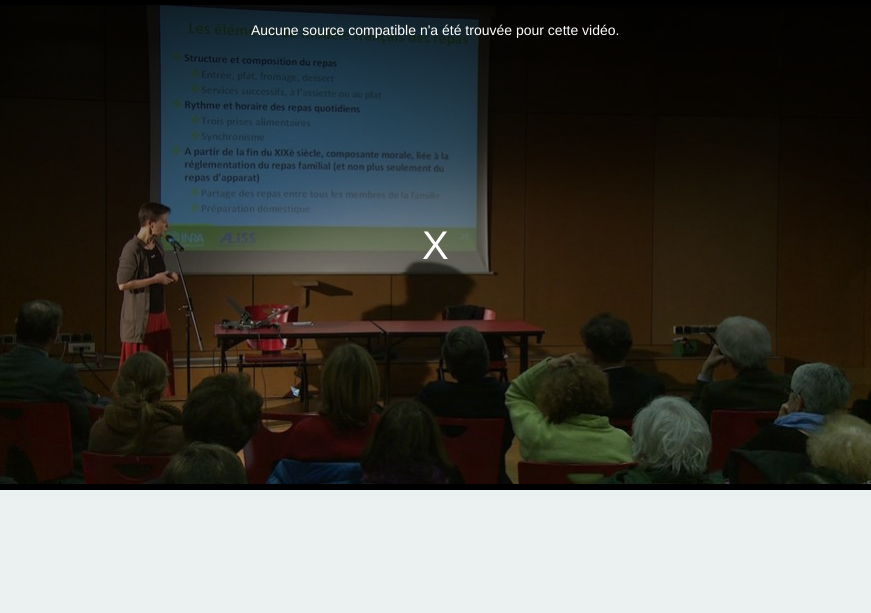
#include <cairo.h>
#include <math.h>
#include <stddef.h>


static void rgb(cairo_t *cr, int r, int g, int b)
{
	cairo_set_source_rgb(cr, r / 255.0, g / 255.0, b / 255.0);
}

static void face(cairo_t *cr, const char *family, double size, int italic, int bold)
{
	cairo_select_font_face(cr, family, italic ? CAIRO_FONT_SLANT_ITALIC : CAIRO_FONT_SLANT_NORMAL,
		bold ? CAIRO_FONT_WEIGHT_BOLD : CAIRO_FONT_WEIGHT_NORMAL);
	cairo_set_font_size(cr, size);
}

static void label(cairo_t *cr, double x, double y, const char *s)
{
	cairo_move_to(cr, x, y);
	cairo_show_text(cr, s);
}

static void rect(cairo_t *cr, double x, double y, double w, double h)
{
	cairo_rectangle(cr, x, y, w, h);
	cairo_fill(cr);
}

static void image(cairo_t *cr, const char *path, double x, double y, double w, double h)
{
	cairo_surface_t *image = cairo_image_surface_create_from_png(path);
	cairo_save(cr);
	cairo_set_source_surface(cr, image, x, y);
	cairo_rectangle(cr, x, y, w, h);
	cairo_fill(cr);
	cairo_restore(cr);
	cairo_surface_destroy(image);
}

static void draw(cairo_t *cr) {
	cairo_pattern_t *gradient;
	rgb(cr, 235, 240, 240);
	cairo_paint(cr);
	rgb(cr, 0, 0, 0);
	rect(cr, 0, 0, 871, 490);
	image(cr, "image0.png", 0, 5, 871, 479);
	gradient = cairo_pattern_create_linear(435, 0, 436, 490);
	cairo_pattern_add_color_stop_rgba(gradient, 0, 0, 0, 0, 0.8);
	cairo_pattern_add_color_stop_rgba(gradient, 1, 0, 0, 0, 0);
	cairo_set_source(cr, gradient);
	cairo_pattern_destroy(gradient);
	rect(cr, 0, 5, 871, 464);
	face(cr, "Liberation Sans", 14, 0, 0);
	rgb(cr, 255, 255, 255);
	label(cr, 251, 35, "Aucune source compatible n'a été trouvée pour cette vidéo.");
	face(cr, "Liberation Sans", 40, 0, 0);
	label(cr, 422, 259, "X");
}

int main(void) {
	cairo_surface_t *surface = cairo_image_surface_create(CAIRO_FORMAT_RGB24, 871, 613);
	cairo_t *cr = cairo_create(surface);
	cairo_font_options_t *options = cairo_font_options_create();
	cairo_font_options_set_hint_metrics(options, CAIRO_HINT_METRICS_OFF);
	cairo_font_options_set_hint_style(options, CAIRO_HINT_STYLE_NONE);
	cairo_set_font_options(cr, options);
	cairo_set_miter_limit(cr, 4);
	draw(cr);
	cairo_surface_write_to_png(surface, "render.png");
	cairo_font_options_destroy(options);
	cairo_destroy(cr);
	cairo_surface_destroy(surface);
	return 0;
}
